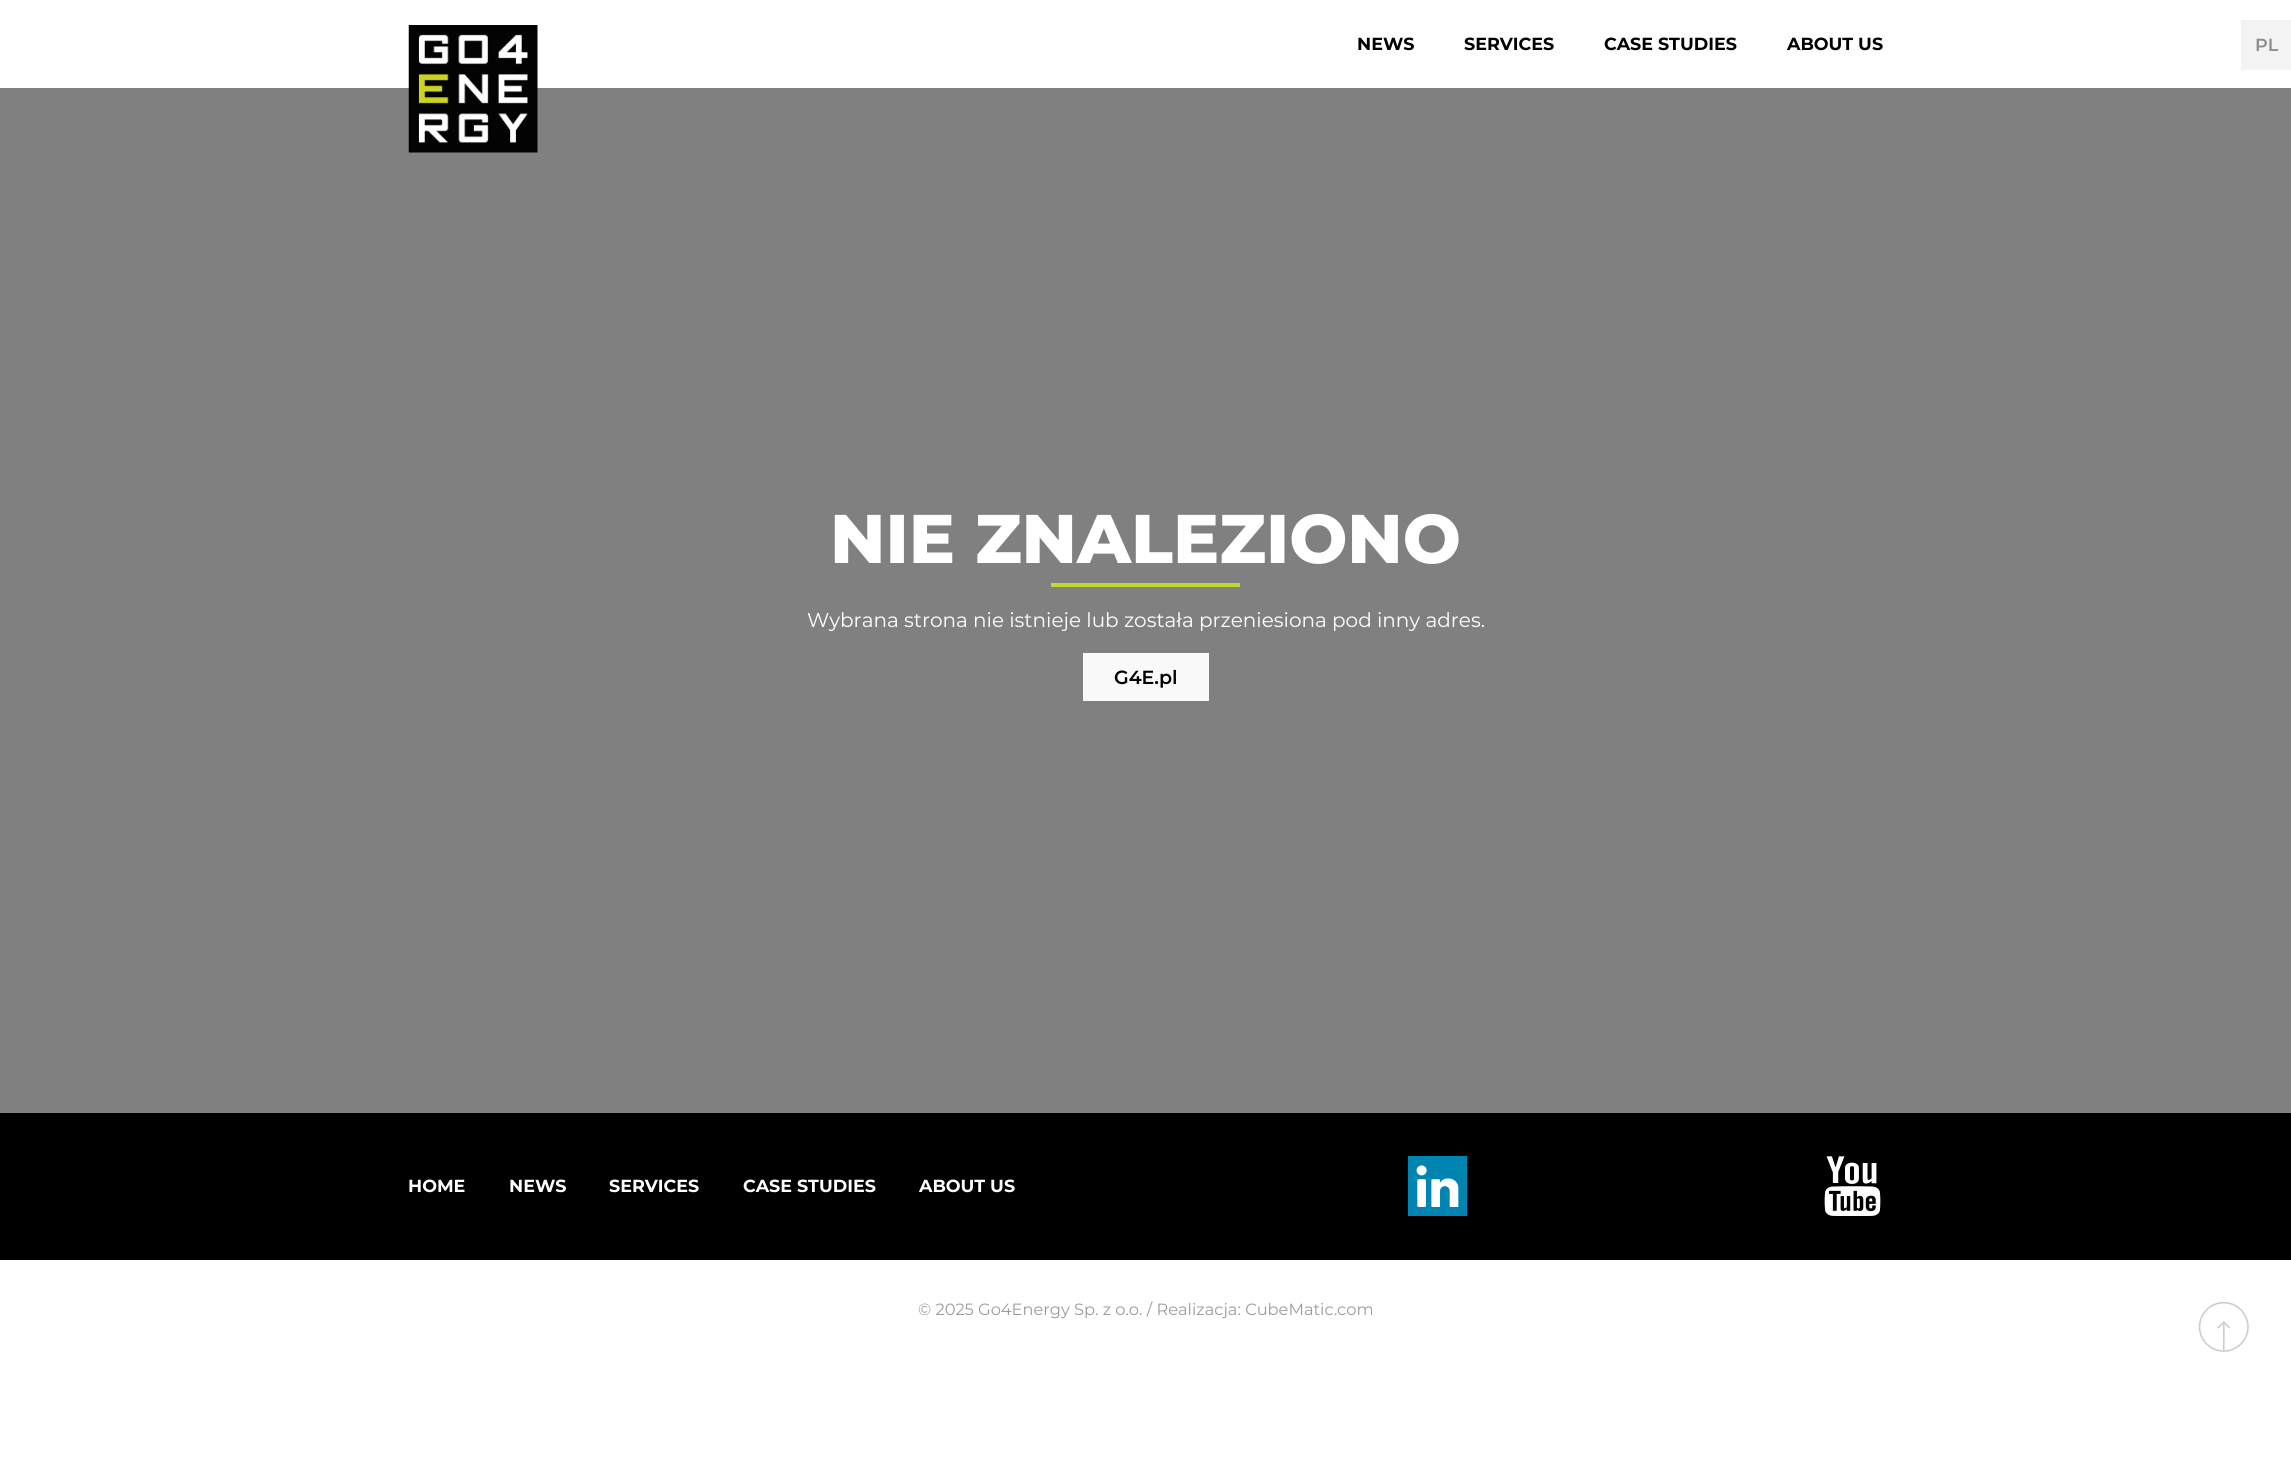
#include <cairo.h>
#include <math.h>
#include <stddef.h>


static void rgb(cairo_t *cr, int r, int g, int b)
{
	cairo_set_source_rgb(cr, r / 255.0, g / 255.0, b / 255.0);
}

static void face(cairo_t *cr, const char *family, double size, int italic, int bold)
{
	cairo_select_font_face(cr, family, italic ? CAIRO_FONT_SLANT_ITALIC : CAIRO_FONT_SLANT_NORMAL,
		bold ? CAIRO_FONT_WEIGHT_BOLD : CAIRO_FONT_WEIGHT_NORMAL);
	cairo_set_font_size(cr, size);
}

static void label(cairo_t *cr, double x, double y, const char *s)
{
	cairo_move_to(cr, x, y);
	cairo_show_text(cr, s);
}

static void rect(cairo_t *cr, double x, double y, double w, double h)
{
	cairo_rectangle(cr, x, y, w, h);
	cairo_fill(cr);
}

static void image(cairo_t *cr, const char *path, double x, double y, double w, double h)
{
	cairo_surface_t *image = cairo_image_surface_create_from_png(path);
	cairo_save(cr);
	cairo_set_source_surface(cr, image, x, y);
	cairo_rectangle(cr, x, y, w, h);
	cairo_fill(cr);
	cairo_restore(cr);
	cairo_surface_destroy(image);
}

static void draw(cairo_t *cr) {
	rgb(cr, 255, 255, 255);
	cairo_paint(cr);
	rgb(cr, 128, 128, 128);
	rect(cr, 0, 88, 2291, 1025);
	image(cr, "image0.png", 408, 25, 130, 128);
	face(cr, "Montserrat", 17.5, 0, 1);
	rgb(cr, 0, 0, 0);
	label(cr, 1357, 50, "NEWS");
	label(cr, 1464, 50, "SERVICES");
	label(cr, 1604, 50, "CASE STUDIES");
	label(cr, 1787, 50, "ABOUT US");
	rgb(cr, 243, 243, 243);
	rect(cr, 2241, 20, 50, 50);
	face(cr, "Montserrat SemiBold", 17.5, 0, 0);
	rgb(cr, 142, 142, 142);
	label(cr, 2255, 51, "PL");
	face(cr, "Montserrat ExtraBold", 68.75, 0, 0);
	rgb(cr, 255, 255, 255);
	label(cr, 830, 563, "NIE ZNALEZIONO");
	rgb(cr, 196, 216, 45);
	rect(cr, 1051, 583, 189, 4);
	face(cr, "Montserrat", 20, 0, 0);
	rgb(cr, 255, 255, 255);
	label(cr, 807, 627, "Wybrana strona nie istnieje lub została przeniesiona pod inny adres.");
	rgb(cr, 249, 249, 249);
	rect(cr, 1083, 653, 126, 48);
	face(cr, "Montserrat SemiBold", 19, 0, 0);
	rgb(cr, 0, 0, 0);
	label(cr, 1114, 684, "G4E.pl");
	rect(cr, 0, 1113, 2291, 147);
	face(cr, "Montserrat", 17.5, 0, 1);
	rgb(cr, 255, 255, 255);
	label(cr, 408, 1192, "HOME");
	label(cr, 509, 1192, "NEWS");
	label(cr, 609, 1192, "SERVICES");
	label(cr, 743, 1192, "CASE STUDIES");
	label(cr, 919, 1192, "ABOUT US");
	image(cr, "image1.png", 1408, 1156, 59, 60);
	image(cr, "image2.png", 1824, 1156, 57, 60);
	face(cr, "Montserrat", 16.25, 0, 0);
	rgb(cr, 155, 155, 155);
	label(cr, 918, 1315, "© 2025 Go4Energy Sp. z o.o. / Realizacja: CubeMatic.com");
	image(cr, "image3.png", 2198, 1301, 51, 51);
}

int main(void) {
	cairo_surface_t *surface = cairo_image_surface_create(CAIRO_FORMAT_RGB24, 2291, 1463);
	cairo_t *cr = cairo_create(surface);
	cairo_font_options_t *options = cairo_font_options_create();
	cairo_font_options_set_hint_metrics(options, CAIRO_HINT_METRICS_OFF);
	cairo_font_options_set_hint_style(options, CAIRO_HINT_STYLE_NONE);
	cairo_set_font_options(cr, options);
	cairo_set_miter_limit(cr, 4);
	draw(cr);
	cairo_surface_write_to_png(surface, "render.png");
	cairo_font_options_destroy(options);
	cairo_destroy(cr);
	cairo_surface_destroy(surface);
	return 0;
}
